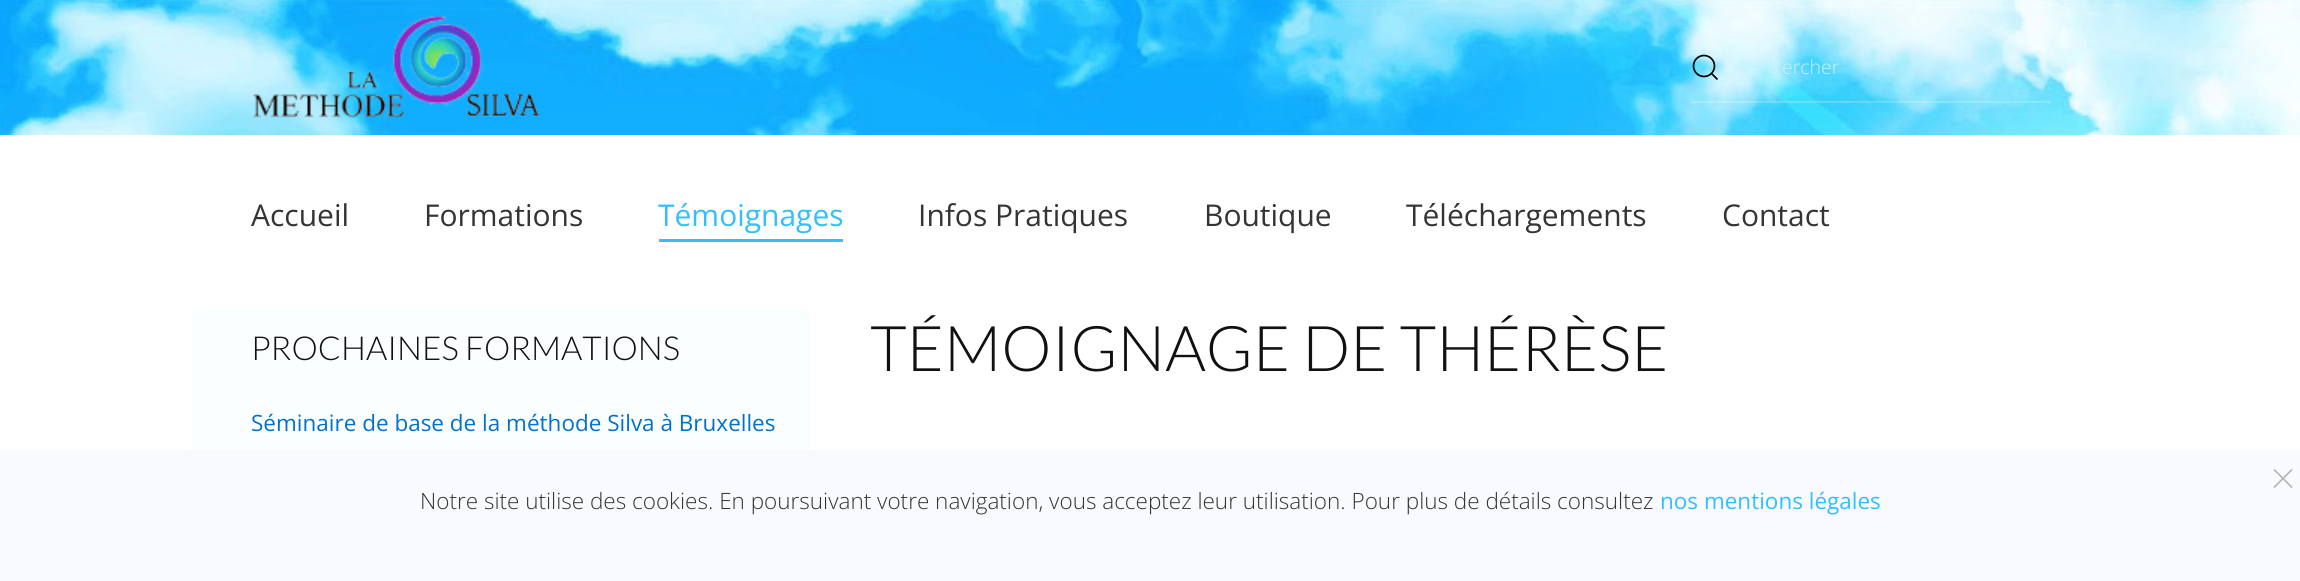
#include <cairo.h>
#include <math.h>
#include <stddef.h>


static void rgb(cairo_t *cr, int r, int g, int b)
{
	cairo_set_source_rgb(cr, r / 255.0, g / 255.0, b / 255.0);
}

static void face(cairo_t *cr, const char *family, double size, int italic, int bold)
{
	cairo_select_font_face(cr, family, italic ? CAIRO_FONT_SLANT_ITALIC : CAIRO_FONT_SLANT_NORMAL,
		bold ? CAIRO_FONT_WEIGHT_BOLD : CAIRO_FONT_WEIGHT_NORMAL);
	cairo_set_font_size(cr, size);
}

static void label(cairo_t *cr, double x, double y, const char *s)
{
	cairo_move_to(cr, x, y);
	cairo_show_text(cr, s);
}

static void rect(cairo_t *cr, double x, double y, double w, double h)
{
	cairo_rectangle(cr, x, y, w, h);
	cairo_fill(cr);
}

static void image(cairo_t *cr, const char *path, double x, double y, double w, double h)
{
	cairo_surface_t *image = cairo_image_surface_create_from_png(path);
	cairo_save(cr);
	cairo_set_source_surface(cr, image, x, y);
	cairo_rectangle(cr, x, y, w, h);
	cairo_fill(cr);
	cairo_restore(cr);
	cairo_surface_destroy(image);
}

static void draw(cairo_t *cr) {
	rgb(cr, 255, 255, 255);
	cairo_paint(cr);
	image(cr, "image0.png", 0, 0, 2300, 135);
	image(cr, "image1.png", 253, 15, 288, 103);
	cairo_arc(cr, 1704, 66, 10.5, 0, 2 * M_PI);
	rgb(cr, 0, 0, 0);
	cairo_set_line_width(cr, 1.7);
	cairo_stroke(cr);
	cairo_new_path(cr);
	cairo_move_to(cr, 1711.5, 73.5);
	cairo_line_to(cr, 1717.5, 79.5);
	cairo_close_path(cr);
	cairo_stroke(cr);
	cairo_set_source_rgba(cr, 1, 1, 1, 0.2);
	rect(cr, 1691, 101, 360, 2);
	face(cr, "Open Sans Light", 19.5, 0, 0);
	rgb(cr, 198, 242, 254);
	label(cr, 1782, 74, "ercher");
	face(cr, "Open Sans", 30, 0, 0);
	rgb(cr, 52, 52, 52);
	label(cr, 251, 226, "Accueil");
	label(cr, 424, 226, "Formations");
	rgb(cr, 50, 190, 255);
	label(cr, 658, 226, "Témoignages");
	rect(cr, 659, 239, 184, 3);
	rgb(cr, 52, 52, 52);
	label(cr, 918, 226, "Infos Pratiques");
	label(cr, 1204, 226, "Boutique");
	label(cr, 1406, 226, "Téléchargements");
	label(cr, 1722, 226, "Contact");
	rgb(cr, 251, 254, 255);
	rect(cr, 191, 309, 619, 141);
	face(cr, "Lato Light", 33, 0, 0);
	rgb(cr, 17, 17, 17);
	label(cr, 251, 360, "PROCHAINES FORMATIONS");
	face(cr, "Open Sans", 22.5, 0, 0);
	rgb(cr, 1, 113, 205);
	label(cr, 251, 431, "Séminaire de base de la méthode Silva à Bruxelles");
	face(cr, "Lato Light", 63, 0, 0);
	rgb(cr, 17, 17, 17);
	label(cr, 870, 371, "TÉMOIGNAGE DE THÉRÈSE");
	rgb(cr, 249, 250, 254);
	rect(cr, 0, 450, 2300, 131);
	cairo_new_path(cr);
	cairo_move_to(cr, 2274, 469.5);
	cairo_line_to(cr, 2292, 487.5);
	cairo_move_to(cr, 2292, 469.5);
	cairo_line_to(cr, 2274, 487.5);
	rgb(cr, 182, 182, 182);
	cairo_stroke(cr);
	face(cr, "Open Sans Light", 22.5, 0, 0);
	rgb(cr, 52, 52, 52);
	label(cr, 420, 509, "Notre site utilise des cookies. En poursuivant votre navigation, vous acceptez leur utilisation. Pour plus de détails consultez");
	face(cr, "Open Sans", 22.5, 0, 0);
	rgb(cr, 50, 190, 255);
	label(cr, 1660, 509, "nos mentions légales");
}

int main(void) {
	cairo_surface_t *surface = cairo_image_surface_create(CAIRO_FORMAT_RGB24, 2300, 581);
	cairo_t *cr = cairo_create(surface);
	cairo_font_options_t *options = cairo_font_options_create();
	cairo_font_options_set_hint_metrics(options, CAIRO_HINT_METRICS_OFF);
	cairo_font_options_set_hint_style(options, CAIRO_HINT_STYLE_NONE);
	cairo_set_font_options(cr, options);
	cairo_set_miter_limit(cr, 4);
	draw(cr);
	cairo_surface_write_to_png(surface, "render.png");
	cairo_font_options_destroy(options);
	cairo_destroy(cr);
	cairo_surface_destroy(surface);
	return 0;
}
